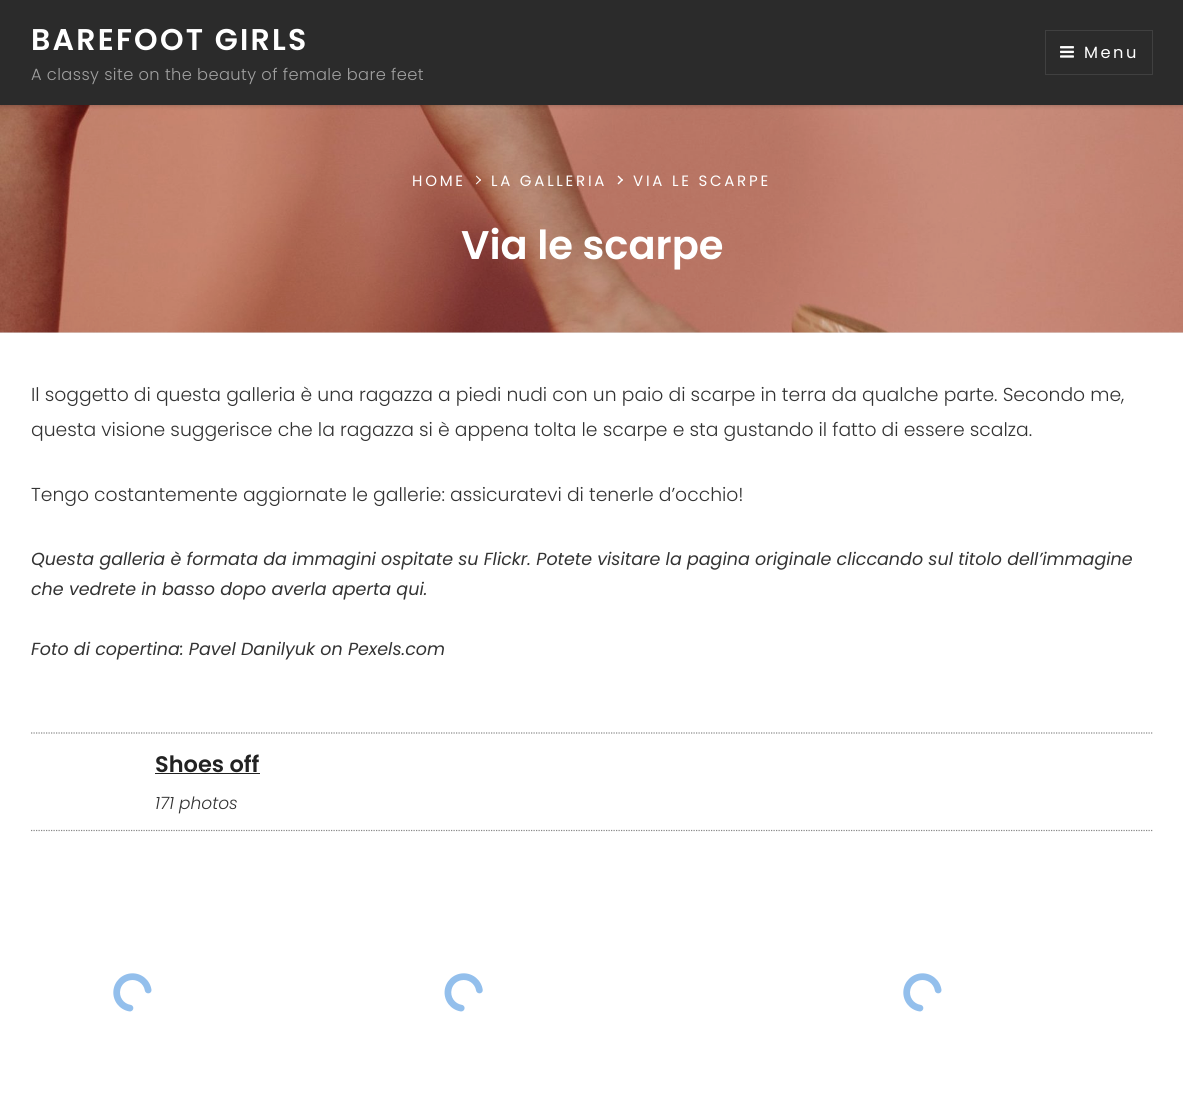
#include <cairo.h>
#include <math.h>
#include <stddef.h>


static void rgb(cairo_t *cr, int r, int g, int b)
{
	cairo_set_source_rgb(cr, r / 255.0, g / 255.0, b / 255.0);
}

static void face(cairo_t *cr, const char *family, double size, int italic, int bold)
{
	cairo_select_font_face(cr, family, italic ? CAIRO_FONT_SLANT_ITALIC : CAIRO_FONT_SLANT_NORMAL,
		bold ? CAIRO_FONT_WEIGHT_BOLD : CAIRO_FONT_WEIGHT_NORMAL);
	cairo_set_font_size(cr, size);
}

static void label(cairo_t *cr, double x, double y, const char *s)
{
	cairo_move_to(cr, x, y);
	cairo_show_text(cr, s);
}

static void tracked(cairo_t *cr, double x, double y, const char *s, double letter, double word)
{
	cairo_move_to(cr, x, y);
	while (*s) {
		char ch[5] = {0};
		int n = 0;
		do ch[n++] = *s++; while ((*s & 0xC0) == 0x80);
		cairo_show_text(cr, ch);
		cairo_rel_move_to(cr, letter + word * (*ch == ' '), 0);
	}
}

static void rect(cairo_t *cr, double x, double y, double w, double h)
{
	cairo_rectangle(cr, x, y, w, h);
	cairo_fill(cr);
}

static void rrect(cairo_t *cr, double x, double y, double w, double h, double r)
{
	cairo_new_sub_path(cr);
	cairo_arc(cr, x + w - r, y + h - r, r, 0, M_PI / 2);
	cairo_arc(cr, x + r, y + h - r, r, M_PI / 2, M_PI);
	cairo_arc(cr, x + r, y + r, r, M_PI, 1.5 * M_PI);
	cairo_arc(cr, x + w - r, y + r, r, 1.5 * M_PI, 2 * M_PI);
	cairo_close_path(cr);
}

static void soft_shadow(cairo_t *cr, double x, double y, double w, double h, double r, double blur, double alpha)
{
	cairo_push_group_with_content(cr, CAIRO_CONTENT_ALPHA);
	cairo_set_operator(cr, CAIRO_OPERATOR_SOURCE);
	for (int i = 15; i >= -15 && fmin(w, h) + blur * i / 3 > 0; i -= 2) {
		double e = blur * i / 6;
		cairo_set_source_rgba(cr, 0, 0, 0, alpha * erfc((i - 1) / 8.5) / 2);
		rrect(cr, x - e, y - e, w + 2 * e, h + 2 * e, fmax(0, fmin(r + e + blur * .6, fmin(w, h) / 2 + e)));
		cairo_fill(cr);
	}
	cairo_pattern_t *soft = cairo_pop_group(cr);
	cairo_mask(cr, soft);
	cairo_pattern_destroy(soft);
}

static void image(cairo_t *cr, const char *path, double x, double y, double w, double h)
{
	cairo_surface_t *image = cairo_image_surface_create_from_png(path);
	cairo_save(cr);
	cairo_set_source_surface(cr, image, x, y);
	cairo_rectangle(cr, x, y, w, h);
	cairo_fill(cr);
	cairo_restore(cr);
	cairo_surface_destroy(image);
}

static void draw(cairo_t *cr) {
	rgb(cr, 255, 255, 255);
	cairo_paint(cr);
	rgb(cr, 230, 230, 230);
	rect(cr, 0, 332, 1183, 1);
	image(cr, "image1.png", 0, 105, 1183, 228);
	rgb(cr, 0, 0, 0);
	soft_shadow(cr, 0, 1, 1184, 105, 0, 2, 0.2);
	rgb(cr, 43, 43, 43);
	rect(cr, 0, 0, 1183, 105);
	face(cr, "Poppins SemiBold", 30, 0, 0);
	rgb(cr, 255, 255, 255);
	tracked(cr, 31, 50, "BAREFOOT GIRLS", 2.25, 0);
	face(cr, "Poppins Light", 16.25, 0, 0);
	rgb(cr, 160, 160, 160);
	tracked(cr, 31, 80, "A classy site on the beauty of female bare feet", 0.4, 0);
	cairo_rectangle(cr, 1045.5, 30.5, 107, 44);
	rgb(cr, 64, 64, 64);
	cairo_set_line_width(cr, 1);
	cairo_stroke(cr);
	image(cr, "image0.png", 1060, 46, 14, 12);
	face(cr, "Poppins", 16.25, 0, 0);
	rgb(cr, 255, 255, 255);
	tracked(cr, 1084, 58, "Menu", 2.5, 0);
	face(cr, "Poppins", 15, 0, 0);
	tracked(cr, 412, 186, "HOME", 2.75, 0);
	cairo_new_path(cr);
	cairo_move_to(cr, 476, 176.5);
	cairo_line_to(cr, 476.5, 175.5);
	cairo_line_to(cr, 481, 180);
	cairo_line_to(cr, 480.5, 181);
	cairo_close_path(cr);
	cairo_fill(cr);
	cairo_new_path(cr);
	cairo_move_to(cr, 476, 183.5);
	cairo_line_to(cr, 480.5, 179);
	cairo_line_to(cr, 481, 180);
	cairo_line_to(cr, 476.5, 184.5);
	cairo_close_path(cr);
	cairo_fill(cr);
	tracked(cr, 491, 186, "LA GALLERIA", 2.75, 0);
	cairo_new_path(cr);
	cairo_move_to(cr, 617.5, 176.5);
	cairo_line_to(cr, 618.5, 175.5);
	cairo_line_to(cr, 623, 180);
	cairo_line_to(cr, 622, 181);
	cairo_close_path(cr);
	cairo_fill(cr);
	cairo_new_path(cr);
	cairo_move_to(cr, 617.5, 183.5);
	cairo_line_to(cr, 622, 179);
	cairo_line_to(cr, 623, 180);
	cairo_line_to(cr, 618.5, 184.5);
	cairo_close_path(cr);
	cairo_fill(cr);
	tracked(cr, 633, 186, "VIA LE SCARPE", 2.75, 0);
	face(cr, "Poppins SemiBold", 40, 0, 0);
	label(cr, 461, 259, "Via le scarpe");
	face(cr, "Poppins Light", 18.75, 0, 0);
	rgb(cr, 51, 51, 51);
	label(cr, 31, 401, "Il soggetto di questa galleria è una ragazza a piedi nudi con un paio di scarpe in terra da qualche parte. Secondo me,");
	label(cr, 31, 436, "questa visione suggerisce che la ragazza si è appena tolta le scarpe e sta gustando il fatto di essere scalza.");
	label(cr, 31, 501, "Tengo costantemente aggiornate le gallerie: assicuratevi di tenerle d’occhio!");
	face(cr, "Poppins", 17.5, 1, 0);
	label(cr, 31, 565, "Questa galleria è formata da immagini ospitate su Flickr. Potete visitare la pagina originale cliccando sul titolo dell’immagine");
	label(cr, 31, 595, "che vedrete in basso dopo averla aperta qui.");
	label(cr, 31, 655, "Foto di copertina: Pavel Danilyuk on Pexels.com");
	cairo_new_path(cr);
	cairo_move_to(cr, 31, 733);
	cairo_line_to(cr, 1152.5, 733);
	rgb(cr, 136, 136, 136);
	cairo_set_line_width(cr, 1.2);
	cairo_set_dash(cr, (double[]){1.25, 1.25}, 2, 0);
	cairo_stroke(cr);
	cairo_new_path(cr);
	cairo_move_to(cr, 31, 830.5);
	cairo_line_to(cr, 1152.5, 830.5);
	cairo_stroke(cr);
	face(cr, "Poppins SemiBold", 22.5, 0, 0);
	rgb(cr, 34, 34, 34);
	label(cr, 155, 772, "Shoes off");
	rect(cr, 155, 773, 105, 1);
	face(cr, "Poppins Light", 17, 1, 0);
	rgb(cr, 51, 51, 51);
	label(cr, 155, 809, "171 photos");
	image(cr, "image2.png", 113, 973, 39, 39);
	image(cr, "image3.png", 444, 973, 39, 39);
	image(cr, "image2.png", 903, 973, 39, 39);
}

int main(void) {
	cairo_surface_t *surface = cairo_image_surface_create(CAIRO_FORMAT_RGB24, 1183, 1106);
	cairo_t *cr = cairo_create(surface);
	cairo_font_options_t *options = cairo_font_options_create();
	cairo_font_options_set_hint_metrics(options, CAIRO_HINT_METRICS_OFF);
	cairo_font_options_set_hint_style(options, CAIRO_HINT_STYLE_NONE);
	cairo_set_font_options(cr, options);
	cairo_set_miter_limit(cr, 4);
	draw(cr);
	cairo_surface_write_to_png(surface, "render.png");
	cairo_font_options_destroy(options);
	cairo_destroy(cr);
	cairo_surface_destroy(surface);
	return 0;
}
